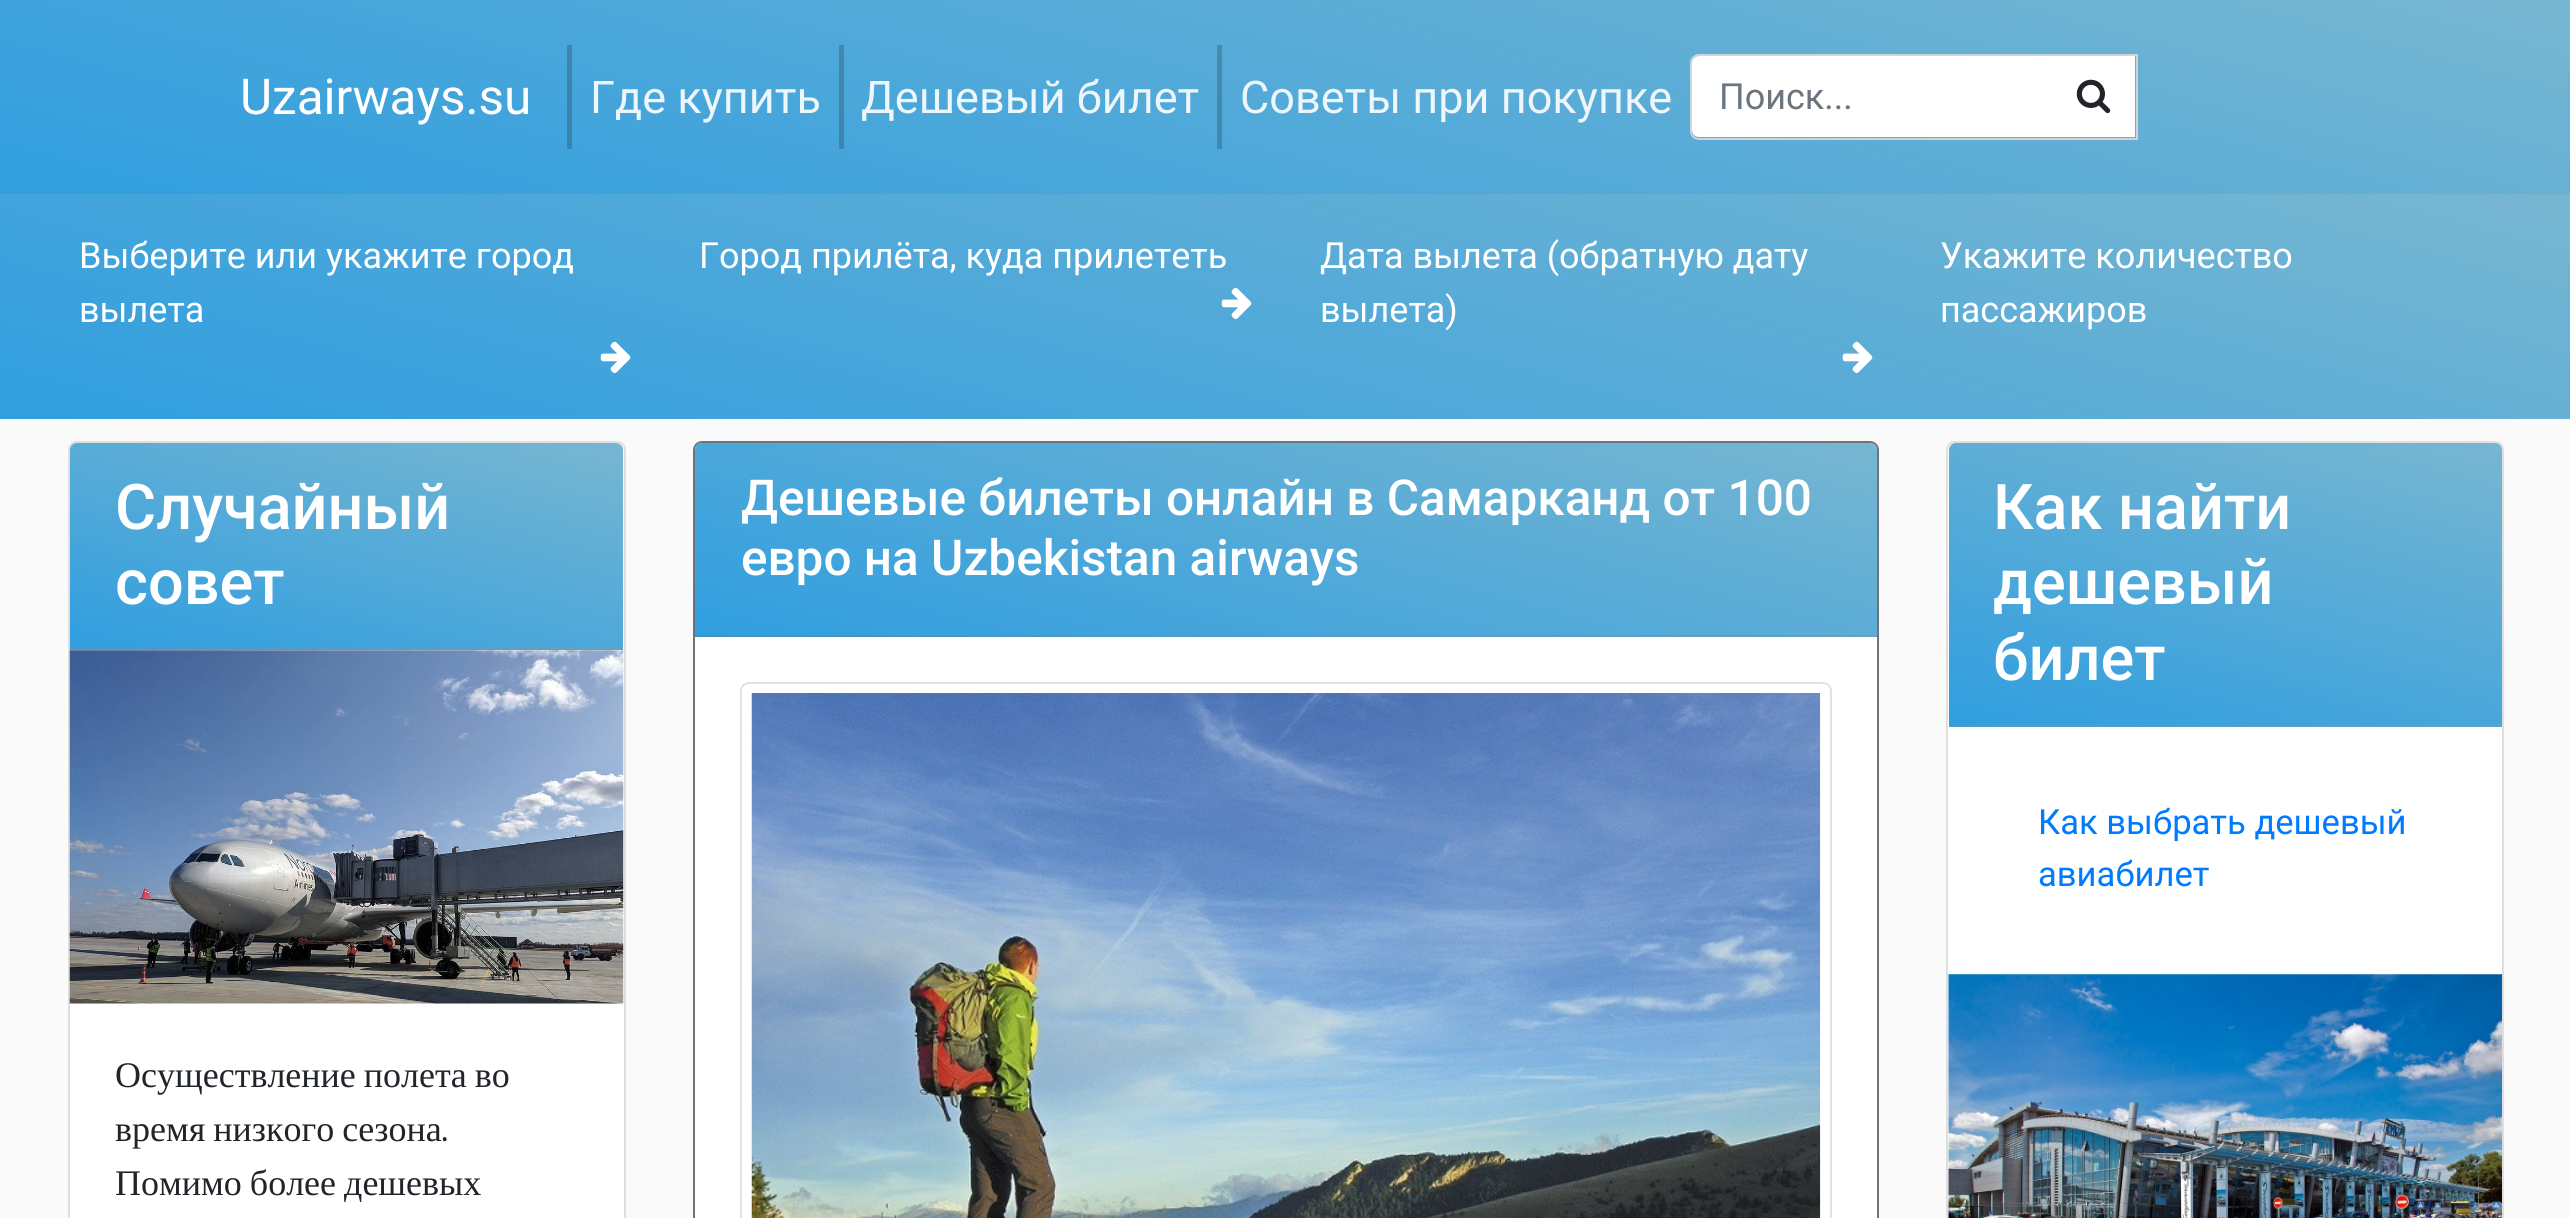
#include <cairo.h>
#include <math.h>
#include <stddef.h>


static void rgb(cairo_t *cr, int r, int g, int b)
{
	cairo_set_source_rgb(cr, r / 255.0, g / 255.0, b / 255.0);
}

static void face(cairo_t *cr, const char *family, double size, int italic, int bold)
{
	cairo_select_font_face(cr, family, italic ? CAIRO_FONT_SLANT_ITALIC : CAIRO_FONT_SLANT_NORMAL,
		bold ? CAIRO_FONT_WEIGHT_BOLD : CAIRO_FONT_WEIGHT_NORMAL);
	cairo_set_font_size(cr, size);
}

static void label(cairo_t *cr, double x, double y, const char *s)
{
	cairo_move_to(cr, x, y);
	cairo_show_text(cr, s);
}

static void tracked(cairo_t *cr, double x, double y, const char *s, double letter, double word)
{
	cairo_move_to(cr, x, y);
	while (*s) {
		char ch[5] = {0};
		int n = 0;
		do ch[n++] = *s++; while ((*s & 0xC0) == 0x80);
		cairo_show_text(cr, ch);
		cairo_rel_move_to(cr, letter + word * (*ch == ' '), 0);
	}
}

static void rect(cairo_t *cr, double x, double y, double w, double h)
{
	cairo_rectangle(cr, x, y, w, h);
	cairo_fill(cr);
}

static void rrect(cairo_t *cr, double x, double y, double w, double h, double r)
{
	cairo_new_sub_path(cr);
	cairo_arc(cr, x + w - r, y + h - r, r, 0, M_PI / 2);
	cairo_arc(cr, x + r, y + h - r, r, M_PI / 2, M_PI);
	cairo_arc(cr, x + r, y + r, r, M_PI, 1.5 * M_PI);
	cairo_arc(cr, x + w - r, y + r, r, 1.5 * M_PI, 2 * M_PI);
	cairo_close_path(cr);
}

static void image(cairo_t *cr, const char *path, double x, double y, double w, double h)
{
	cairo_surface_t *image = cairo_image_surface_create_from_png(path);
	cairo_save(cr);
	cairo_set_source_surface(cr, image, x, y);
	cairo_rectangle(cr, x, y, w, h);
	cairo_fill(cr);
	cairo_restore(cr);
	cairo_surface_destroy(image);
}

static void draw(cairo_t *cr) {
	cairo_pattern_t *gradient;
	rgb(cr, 250, 250, 250);
	cairo_paint(cr);
	gradient = cairo_pattern_create_linear(1176, 508, 1396, -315);
	cairo_pattern_add_color_stop_rgba(gradient, 0, 0.188, 0.62, 0.875, 1);
	cairo_pattern_add_color_stop_rgba(gradient, 1, 0.467, 0.714, 0.82, 1);
	cairo_set_source(cr, gradient);
	cairo_pattern_destroy(gradient);
	rect(cr, 0, 0, 2570, 194);
	gradient = cairo_pattern_create_linear(1176, 508, 1396, -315);
	cairo_pattern_add_color_stop_rgba(gradient, 0, 0.161, 0.502, 0.698, 1);
	cairo_pattern_add_color_stop_rgba(gradient, 1, 0.38, 0.573, 0.655, 1);
	cairo_set_source(cr, gradient);
	cairo_pattern_destroy(gradient);
	rect(cr, 1217, 45, 5, 104);
	rect(cr, 839, 45, 5, 104);
	rect(cr, 567, 45, 5, 104);
	face(cr, "Roboto", 49.5, 0, 0);
	rgb(cr, 255, 255, 255);
	label(cr, 240, 114, "Uzairways.su");
	face(cr, "Roboto", 45, 0, 0);
	rgb(cr, 237, 246, 251);
	label(cr, 590, 113, "Где купить");
	label(cr, 861, 113, "Дешевый билет");
	label(cr, 1240, 113, "Советы при покупке");
	rgb(cr, 255, 255, 255);
	cairo_new_path(cr);
	cairo_move_to(cr, 1699, 56);
	cairo_line_to(cr, 2135, 56);
	cairo_line_to(cr, 2135, 137);
	cairo_line_to(cr, 1699, 137);
	cairo_curve_to(cr, 1695, 137, 1692, 134, 1692, 130);
	cairo_line_to(cr, 1692, 63);
	cairo_curve_to(cr, 1692, 59, 1695, 56, 1699, 56);
	cairo_close_path(cr);
	cairo_fill(cr);
	cairo_new_path(cr);
	cairo_move_to(cr, 1699, 55);
	cairo_line_to(cr, 2137, 55);
	cairo_line_to(cr, 2137, 139);
	cairo_line_to(cr, 1699, 139);
	cairo_curve_to(cr, 1694.5, 139, 1691, 135.5, 1691, 131);
	cairo_line_to(cr, 1691, 63);
	cairo_curve_to(cr, 1691, 58.5, 1694.5, 55, 1699, 55);
	cairo_close_path(cr);
	rgb(cr, 206, 212, 218);
	cairo_stroke(cr);
	face(cr, "Roboto", 36, 0, 0);
	rgb(cr, 108, 117, 125);
	label(cr, 1719, 109, "Поиск...");
	image(cr, "image0.png", 2076, 79, 35, 35);
	gradient = cairo_pattern_create_linear(1172, 732, 1400, -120);
	cairo_pattern_add_color_stop_rgba(gradient, 0, 0.188, 0.62, 0.875, 1);
	cairo_pattern_add_color_stop_rgba(gradient, 1, 0.467, 0.714, 0.82, 1);
	cairo_set_source(cr, gradient);
	cairo_pattern_destroy(gradient);
	rect(cr, 0, 194, 2570, 225);
	rgb(cr, 255, 255, 255);
	label(cr, 79, 268, "Выберите или укажите город");
	label(cr, 79, 322, "вылета");
	image(cr, "image1.png", 600, 341, 31, 33);
	label(cr, 699, 268, "Город прилёта, куда прилететь");
	image(cr, "image2.png", 1221, 287, 31, 33);
	label(cr, 1320, 268, "Дата вылета (обратную дату");
	label(cr, 1320, 322, "вылета)");
	image(cr, "image3.png", 1842, 341, 31, 33);
	label(cr, 1940, 268, "Укажите количество");
	label(cr, 1940, 322, "пассажиров");
	rrect(cr, 69, 442, 556, 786, 8);
	cairo_fill_preserve(cr);
	rgb(cr, 223, 223, 223);
	cairo_stroke(cr);
	gradient = cairo_pattern_create_linear(302, 710, 391, 381);
	cairo_pattern_add_color_stop_rgba(gradient, 0, 0.188, 0.62, 0.875, 1);
	cairo_pattern_add_color_stop_rgba(gradient, 1, 0.467, 0.714, 0.82, 1);
	cairo_set_source(cr, gradient);
	cairo_pattern_destroy(gradient);
	cairo_new_path(cr);
	cairo_move_to(cr, 77, 443);
	cairo_line_to(cr, 616, 443);
	cairo_curve_to(cr, 620, 443, 623, 446, 623, 450);
	cairo_line_to(cr, 623, 648);
	cairo_line_to(cr, 70, 648);
	cairo_line_to(cr, 70, 450);
	cairo_curve_to(cr, 70, 446, 73, 443, 77, 443);
	cairo_close_path(cr);
	cairo_fill(cr);
	gradient = cairo_pattern_create_linear(302, 915, 391, 586);
	cairo_pattern_add_color_stop_rgba(gradient, 0, 0.188, 0.62, 0.875, 1);
	cairo_pattern_add_color_stop_rgba(gradient, 1, 0.467, 0.714, 0.82, 1);
	cairo_set_source(cr, gradient);
	cairo_pattern_destroy(gradient);
	rect(cr, 70, 648, 553, 2);
	cairo_set_source_rgba(cr, 0, 0, 0, 0.12);
	rect(cr, 70, 648, 553, 2);
	face(cr, "Roboto Medium", 63, 0, 0);
	rgb(cr, 255, 255, 255);
	label(cr, 115, 529, "Случайный");
	label(cr, 115, 604, "совет");
	image(cr, "image4.png", 69, 650, 555, 354);
	face(cr, "Liberation Serif", 36, 0, 0);
	rgb(cr, 33, 37, 41);
	tracked(cr, 115, 1087, "Осуществление полета во", 0, -1);
	tracked(cr, 115, 1141, "время низкого сезона", 0, -1);
	face(cr, "Caladea", 36, 0, 0);
	label(cr, 441, 1141, ".");
	face(cr, "Liberation Serif", 36, 0, 0);
	tracked(cr, 115, 1195, "Помимо более дешевых", 0, -1);
	rgb(cr, 255, 255, 255);
	rrect(cr, 694, 442, 1184, 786, 8);
	cairo_fill_preserve(cr);
	rgb(cr, 108, 117, 125);
	cairo_stroke(cr);
	gradient = cairo_pattern_create_linear(1222, 776, 1349, 302);
	cairo_pattern_add_color_stop_rgba(gradient, 0, 0.188, 0.62, 0.875, 1);
	cairo_pattern_add_color_stop_rgba(gradient, 1, 0.467, 0.714, 0.82, 1);
	cairo_set_source(cr, gradient);
	cairo_pattern_destroy(gradient);
	cairo_new_path(cr);
	cairo_move_to(cr, 702, 443);
	cairo_line_to(cr, 1870, 443);
	cairo_curve_to(cr, 1874, 443, 1877, 446, 1877, 450);
	cairo_line_to(cr, 1877, 635);
	cairo_line_to(cr, 695, 635);
	cairo_line_to(cr, 695, 450);
	cairo_curve_to(cr, 695, 446, 698, 443, 702, 443);
	cairo_close_path(cr);
	cairo_fill(cr);
	gradient = cairo_pattern_create_linear(1222, 967, 1349, 493);
	cairo_pattern_add_color_stop_rgba(gradient, 0, 0.188, 0.62, 0.875, 1);
	cairo_pattern_add_color_stop_rgba(gradient, 1, 0.467, 0.714, 0.82, 1);
	cairo_set_source(cr, gradient);
	cairo_pattern_destroy(gradient);
	rect(cr, 695, 635, 1182, 2);
	cairo_set_source_rgba(cr, 0, 0, 0, 0.12);
	rect(cr, 695, 635, 1182, 2);
	face(cr, "Roboto Medium", 49.5, 0, 0);
	rgb(cr, 255, 255, 255);
	label(cr, 741, 515, "Дешевые билеты онлайн в Самарканд от 100");
	label(cr, 741, 575, "евро на Uzbekistan airways");
	rrect(cr, 741, 683, 1090, 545, 8);
	rgb(cr, 222, 226, 230);
	cairo_stroke(cr);
	image(cr, "image5.png", 751, 693, 1070, 525);
	rgb(cr, 255, 255, 255);
	rrect(cr, 1947, 442, 556, 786, 8);
	cairo_fill_preserve(cr);
	rgb(cr, 223, 223, 223);
	cairo_stroke(cr);
	gradient = cairo_pattern_create_linear(2172, 784, 2279, 383);
	cairo_pattern_add_color_stop_rgba(gradient, 0, 0.188, 0.62, 0.875, 1);
	cairo_pattern_add_color_stop_rgba(gradient, 1, 0.467, 0.714, 0.82, 1);
	cairo_set_source(cr, gradient);
	cairo_pattern_destroy(gradient);
	cairo_new_path(cr);
	cairo_move_to(cr, 1956, 443);
	cairo_line_to(cr, 2495, 443);
	cairo_curve_to(cr, 2499, 443, 2502, 446, 2502, 450);
	cairo_line_to(cr, 2502, 725);
	cairo_line_to(cr, 1949, 725);
	cairo_line_to(cr, 1949, 450);
	cairo_curve_to(cr, 1949, 446, 1952, 443, 1956, 443);
	cairo_close_path(cr);
	cairo_fill(cr);
	gradient = cairo_pattern_create_linear(2172, 1066, 2279, 665);
	cairo_pattern_add_color_stop_rgba(gradient, 0, 0.188, 0.62, 0.875, 1);
	cairo_pattern_add_color_stop_rgba(gradient, 1, 0.467, 0.714, 0.82, 1);
	cairo_set_source(cr, gradient);
	cairo_pattern_destroy(gradient);
	rect(cr, 1949, 725, 553, 2);
	cairo_set_source_rgba(cr, 0, 0, 0, 0.12);
	rect(cr, 1949, 725, 553, 2);
	face(cr, "Roboto Medium", 63, 0, 0);
	rgb(cr, 255, 255, 255);
	label(cr, 1993, 529, "Как найти");
	label(cr, 1993, 604, "дешевый");
	label(cr, 1993, 680, "билет");
	face(cr, "Roboto", 34.6, 0, 0);
	rgb(cr, 0, 123, 255);
	label(cr, 2038, 834, "Как выбрать дешевый");
	label(cr, 2038, 886, "авиабилет");
	image(cr, "image6.png", 1948, 974, 554, 244);
}

int main(void) {
	cairo_surface_t *surface = cairo_image_surface_create(CAIRO_FORMAT_RGB24, 2570, 1218);
	cairo_t *cr = cairo_create(surface);
	cairo_font_options_t *options = cairo_font_options_create();
	cairo_font_options_set_hint_metrics(options, CAIRO_HINT_METRICS_OFF);
	cairo_font_options_set_hint_style(options, CAIRO_HINT_STYLE_NONE);
	cairo_set_font_options(cr, options);
	cairo_set_miter_limit(cr, 4);
	draw(cr);
	cairo_surface_write_to_png(surface, "render.png");
	cairo_font_options_destroy(options);
	cairo_destroy(cr);
	cairo_surface_destroy(surface);
	return 0;
}
